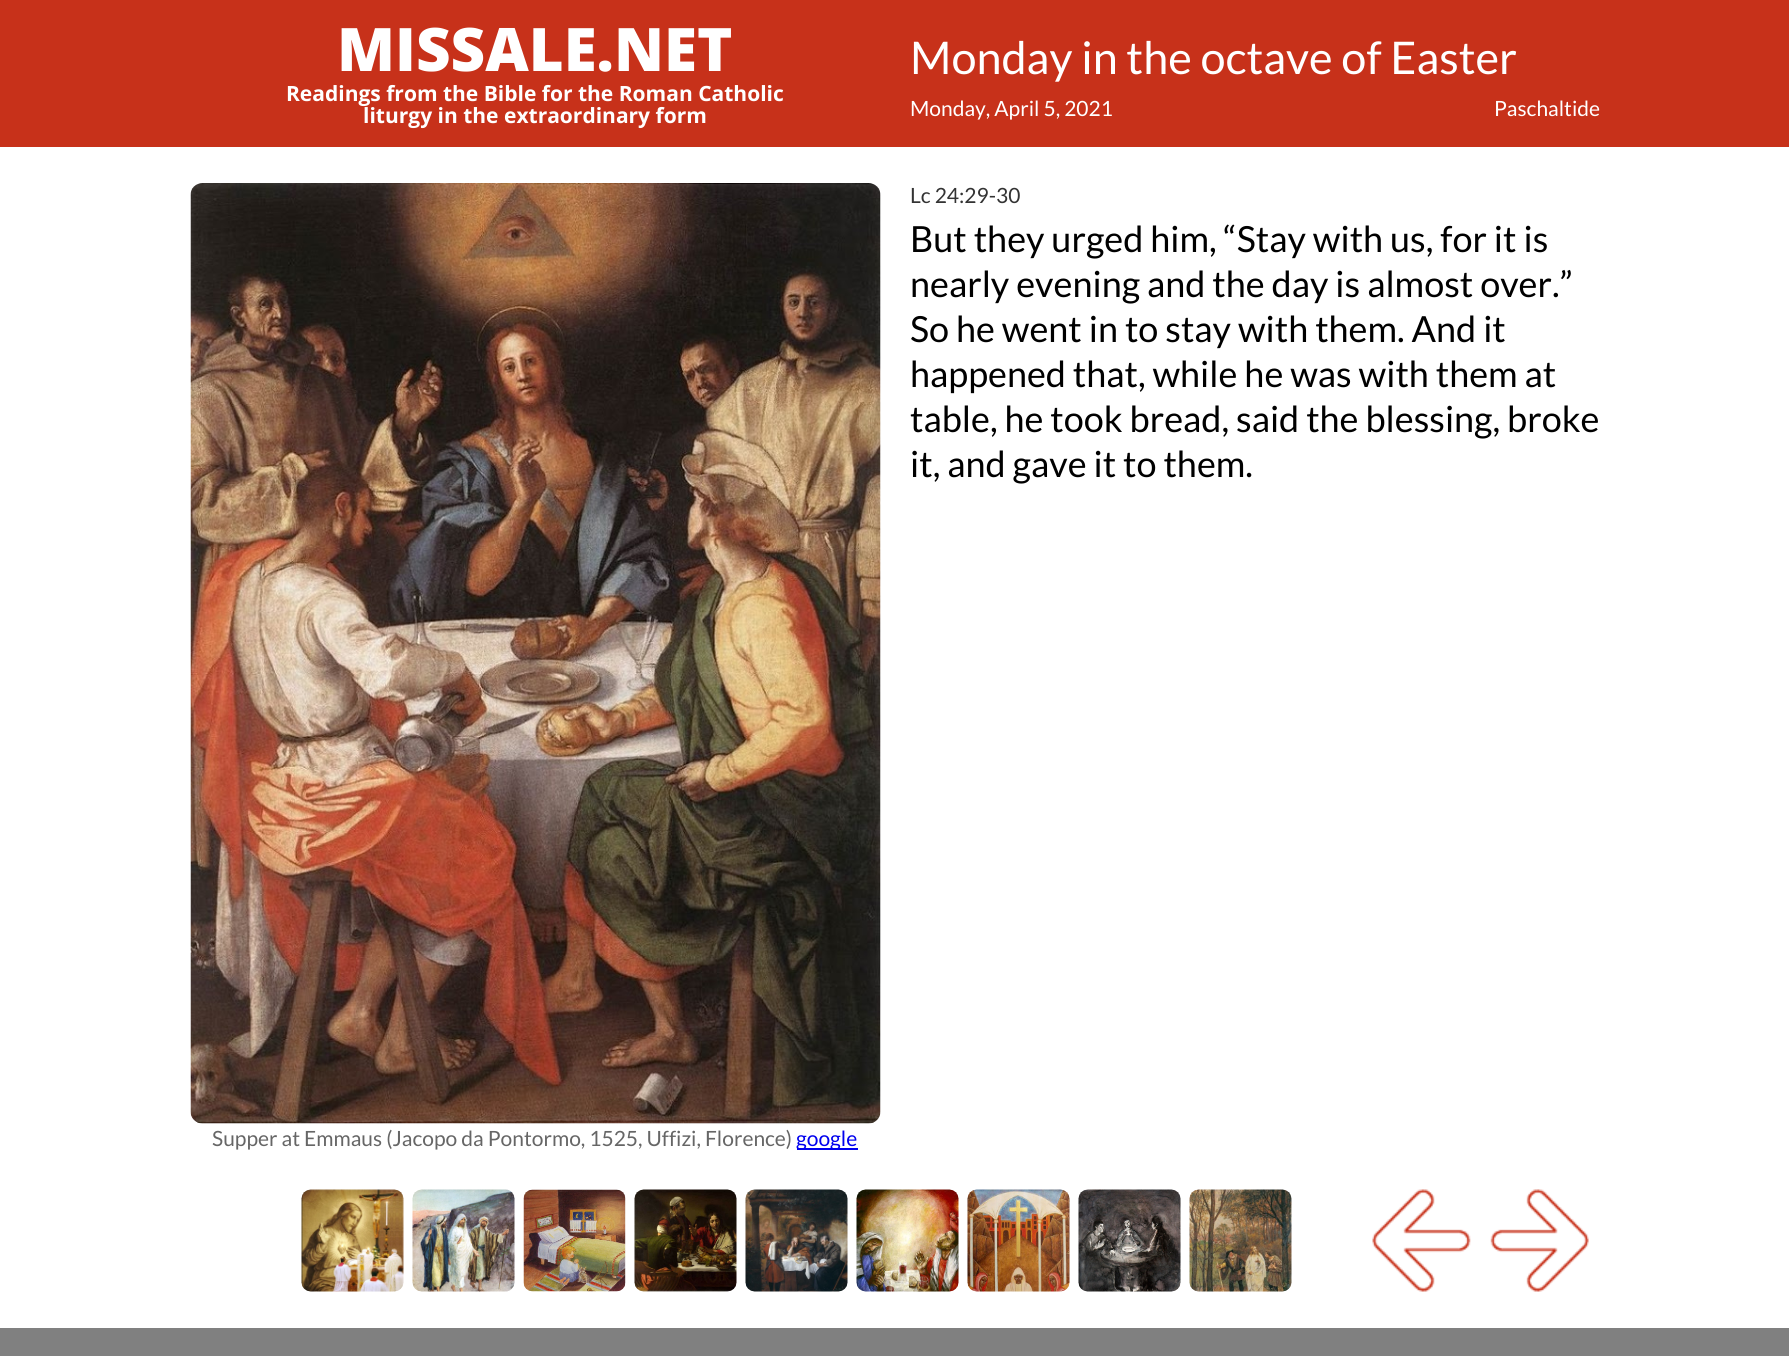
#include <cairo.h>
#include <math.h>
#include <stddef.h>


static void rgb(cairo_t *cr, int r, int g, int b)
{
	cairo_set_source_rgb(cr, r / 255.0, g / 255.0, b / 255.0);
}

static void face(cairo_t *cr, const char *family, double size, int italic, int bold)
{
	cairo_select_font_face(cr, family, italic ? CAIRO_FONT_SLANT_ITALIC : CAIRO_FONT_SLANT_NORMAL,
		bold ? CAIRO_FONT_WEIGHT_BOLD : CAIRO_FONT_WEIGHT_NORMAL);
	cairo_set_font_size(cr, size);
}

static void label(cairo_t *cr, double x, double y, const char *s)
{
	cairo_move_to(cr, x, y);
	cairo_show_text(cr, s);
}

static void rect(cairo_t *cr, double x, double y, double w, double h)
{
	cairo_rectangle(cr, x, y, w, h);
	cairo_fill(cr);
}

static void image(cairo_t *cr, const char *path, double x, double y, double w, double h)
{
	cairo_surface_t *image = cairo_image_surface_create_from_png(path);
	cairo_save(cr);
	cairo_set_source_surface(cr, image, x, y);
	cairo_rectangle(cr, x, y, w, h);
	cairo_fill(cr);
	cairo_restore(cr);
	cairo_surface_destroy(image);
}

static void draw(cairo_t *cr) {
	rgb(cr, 255, 255, 255);
	cairo_paint(cr);
	rgb(cr, 199, 49, 26);
	rect(cr, 0, 0, 1789, 147);
	face(cr, "Open Sans ExtraBold", 60, 0, 0);
	rgb(cr, 255, 255, 255);
	label(cr, 337, 71, "MISSALE.NET");
	face(cr, "Open Sans", 21, 0, 1);
	label(cr, 286, 101, "Readings from the Bible for the Roman Catholic");
	label(cr, 363, 123, "liturgy in the extraordinary form");
	face(cr, "Lato", 45, 0, 0);
	label(cr, 910, 74, "Monday in the octave of Easter");
	face(cr, "Lato", 21, 0, 0);
	label(cr, 910, 116, "Monday, April 5, 2021");
	label(cr, 1494, 116, "Paschaltide");
	rgb(cr, 51, 51, 51);
	label(cr, 910, 203, "Lc 24:29-30");
	face(cr, "Lato", 36, 0, 0);
	rgb(cr, 0, 0, 0);
	label(cr, 910, 252, "But they urged him, “Stay with us, for it is");
	label(cr, 910, 297, "nearly evening and the day is almost over.”");
	label(cr, 910, 342, "So he went in to stay with them. And it");
	label(cr, 910, 387, "happened that, while he was with them at");
	label(cr, 910, 432, "table, he took bread, said the blessing, broke");
	label(cr, 910, 477, "it, and gave it to them.");
	image(cr, "image0.png", 190, 183, 691, 941);
	face(cr, "Lato", 21, 0, 0);
	rgb(cr, 102, 102, 102);
	label(cr, 212, 1146, "Supper at Emmaus (Jacopo da Pontormo, 1525, Uffizi, Florence)");
	rgb(cr, 0, 0, 238);
	rect(cr, 797, 1148, 61, 2);
	label(cr, 796, 1146, "google");
	image(cr, "image1.png", 301, 1189, 103, 103);
	image(cr, "image2.png", 412, 1189, 103, 103);
	image(cr, "image3.png", 523, 1189, 103, 103);
	image(cr, "image4.png", 634, 1189, 103, 103);
	image(cr, "image5.png", 745, 1189, 103, 103);
	image(cr, "image6.png", 856, 1189, 103, 103);
	image(cr, "image7.png", 967, 1189, 103, 103);
	image(cr, "image8.png", 1078, 1189, 103, 103);
	image(cr, "image9.png", 1189, 1189, 103, 103);
	image(cr, "image10.png", 1372, 1189, 99, 103);
	image(cr, "image11.png", 1490, 1189, 99, 103);
	rgb(cr, 128, 128, 128);
	rect(cr, 0, 1328, 1789, 28);
}

int main(void) {
	cairo_surface_t *surface = cairo_image_surface_create(CAIRO_FORMAT_RGB24, 1789, 1356);
	cairo_t *cr = cairo_create(surface);
	cairo_font_options_t *options = cairo_font_options_create();
	cairo_font_options_set_hint_metrics(options, CAIRO_HINT_METRICS_OFF);
	cairo_font_options_set_hint_style(options, CAIRO_HINT_STYLE_NONE);
	cairo_set_font_options(cr, options);
	cairo_set_miter_limit(cr, 4);
	draw(cr);
	cairo_surface_write_to_png(surface, "render.png");
	cairo_font_options_destroy(options);
	cairo_destroy(cr);
	cairo_surface_destroy(surface);
	return 0;
}
